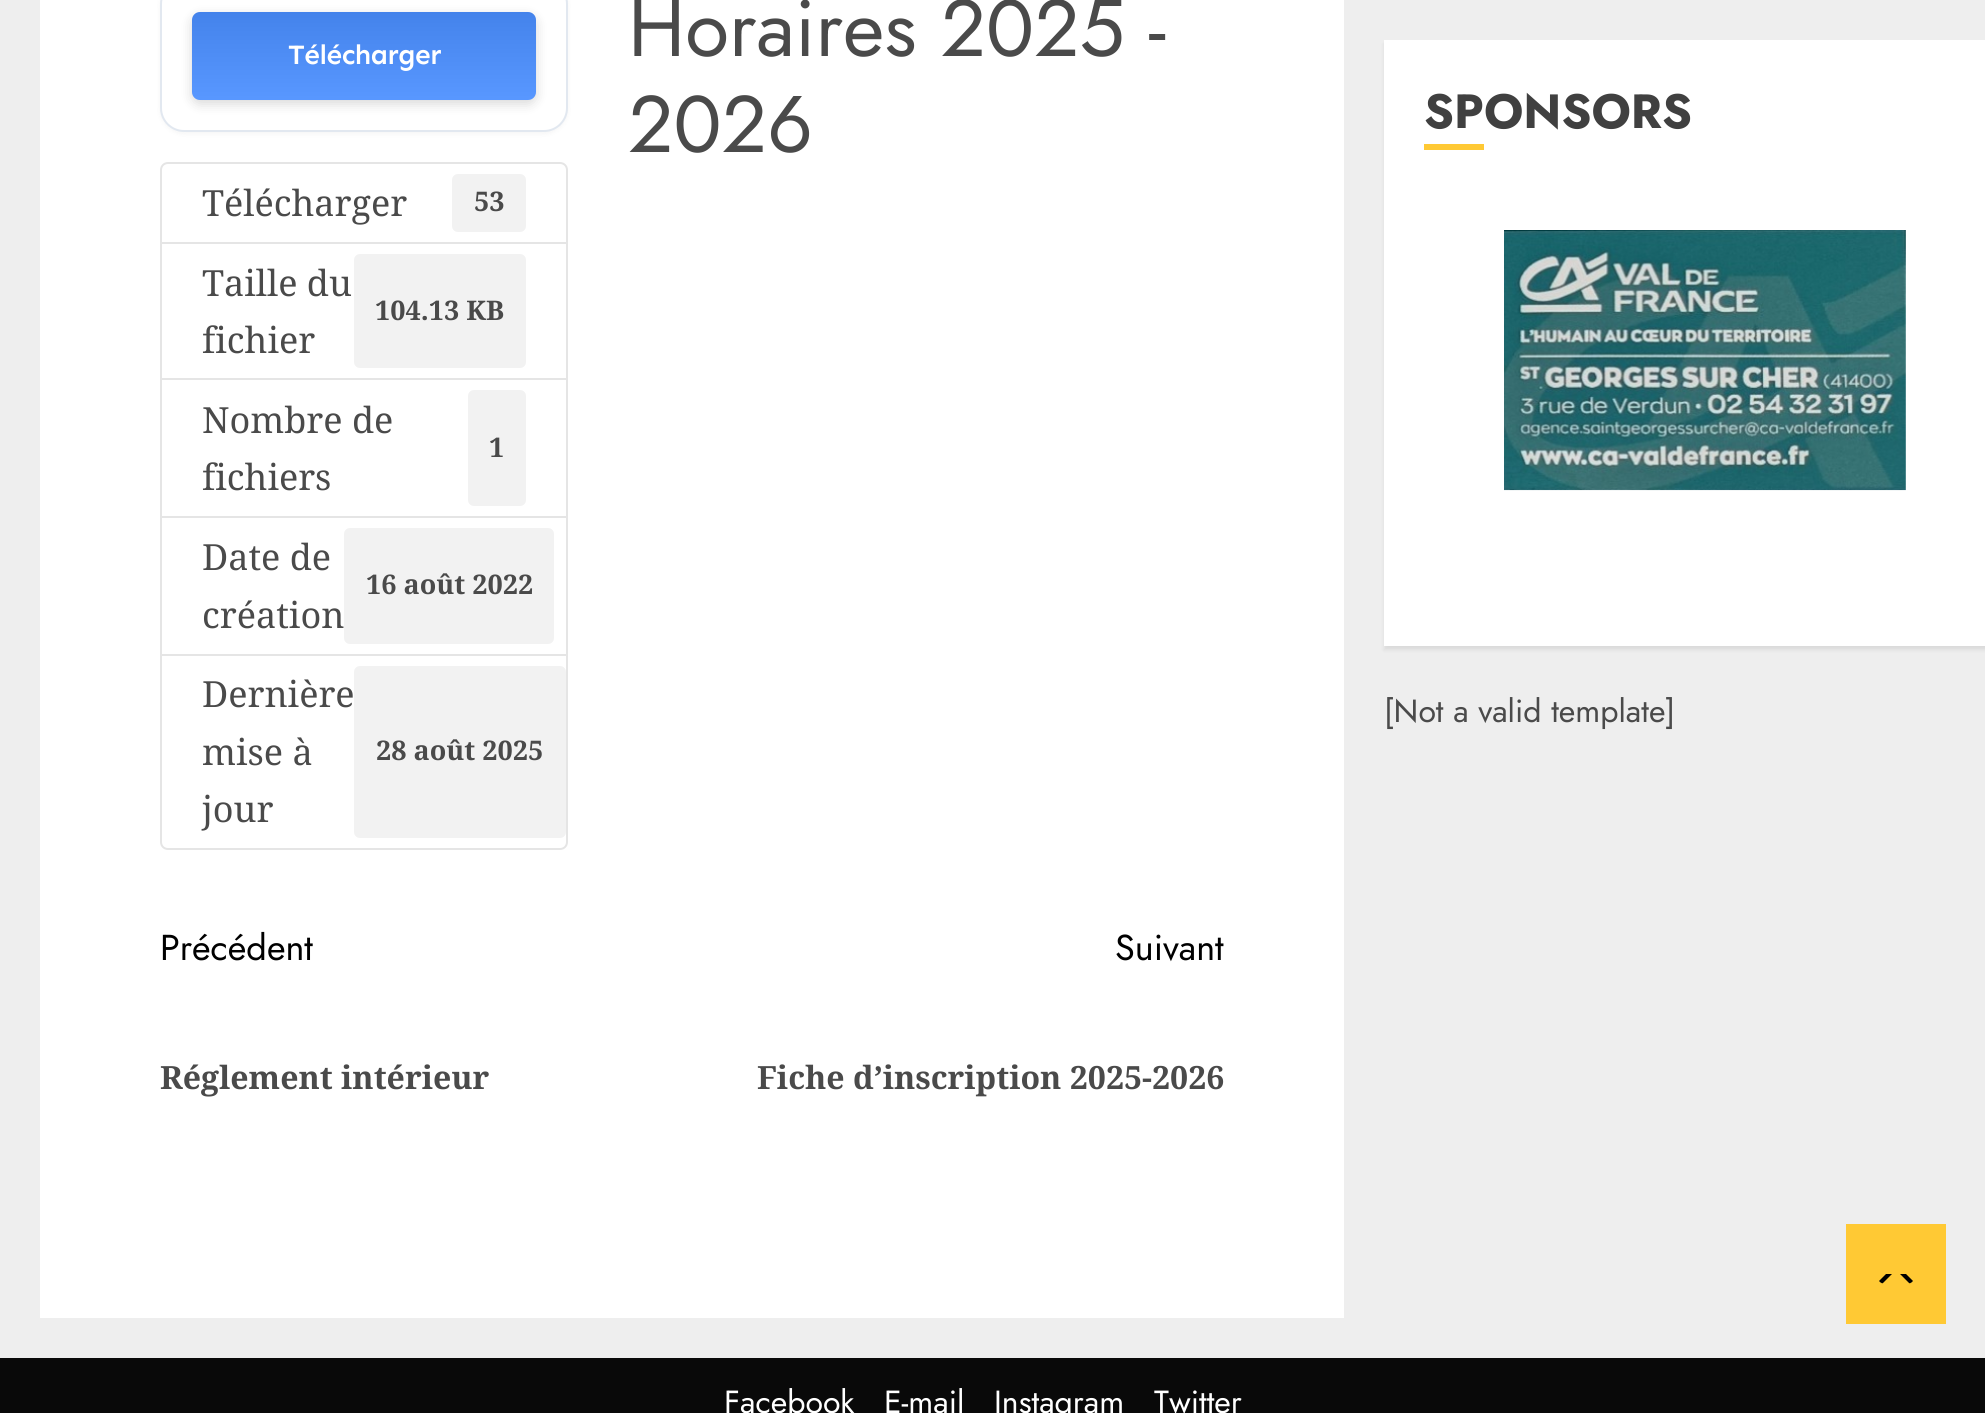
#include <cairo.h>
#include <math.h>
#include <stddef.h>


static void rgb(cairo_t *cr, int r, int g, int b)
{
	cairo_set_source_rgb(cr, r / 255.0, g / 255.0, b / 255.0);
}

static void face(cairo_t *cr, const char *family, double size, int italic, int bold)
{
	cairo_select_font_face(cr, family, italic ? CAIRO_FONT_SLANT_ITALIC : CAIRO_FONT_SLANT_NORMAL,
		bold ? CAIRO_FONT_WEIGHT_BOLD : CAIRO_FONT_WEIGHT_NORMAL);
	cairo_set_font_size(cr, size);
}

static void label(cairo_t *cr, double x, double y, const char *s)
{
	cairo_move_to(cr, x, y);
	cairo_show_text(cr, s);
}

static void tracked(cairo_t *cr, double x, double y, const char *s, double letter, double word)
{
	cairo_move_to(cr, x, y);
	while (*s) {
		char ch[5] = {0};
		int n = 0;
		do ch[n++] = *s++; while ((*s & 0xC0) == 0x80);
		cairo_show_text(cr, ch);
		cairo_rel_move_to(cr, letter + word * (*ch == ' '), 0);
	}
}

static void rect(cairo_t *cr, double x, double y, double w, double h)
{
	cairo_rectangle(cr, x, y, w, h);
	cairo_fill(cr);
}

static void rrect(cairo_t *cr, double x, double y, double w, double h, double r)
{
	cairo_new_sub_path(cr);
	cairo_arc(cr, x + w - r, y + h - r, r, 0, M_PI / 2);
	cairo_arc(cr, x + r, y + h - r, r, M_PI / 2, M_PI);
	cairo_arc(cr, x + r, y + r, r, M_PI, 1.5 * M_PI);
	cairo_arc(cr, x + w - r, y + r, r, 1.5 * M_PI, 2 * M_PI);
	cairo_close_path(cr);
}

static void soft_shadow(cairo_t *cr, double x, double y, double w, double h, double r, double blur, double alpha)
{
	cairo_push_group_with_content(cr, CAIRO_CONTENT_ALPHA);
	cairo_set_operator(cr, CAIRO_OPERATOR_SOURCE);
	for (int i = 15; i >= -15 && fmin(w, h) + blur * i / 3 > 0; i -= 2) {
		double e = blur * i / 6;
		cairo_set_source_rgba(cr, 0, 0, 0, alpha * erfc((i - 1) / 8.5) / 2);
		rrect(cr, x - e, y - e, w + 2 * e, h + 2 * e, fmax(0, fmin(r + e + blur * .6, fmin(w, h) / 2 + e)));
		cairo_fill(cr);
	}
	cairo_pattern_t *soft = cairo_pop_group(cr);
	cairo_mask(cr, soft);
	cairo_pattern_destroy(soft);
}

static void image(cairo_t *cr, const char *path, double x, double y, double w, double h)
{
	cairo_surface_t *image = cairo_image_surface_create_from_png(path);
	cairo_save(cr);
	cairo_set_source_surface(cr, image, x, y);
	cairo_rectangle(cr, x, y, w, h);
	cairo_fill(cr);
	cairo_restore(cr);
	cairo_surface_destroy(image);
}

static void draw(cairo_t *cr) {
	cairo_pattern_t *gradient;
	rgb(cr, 238, 238, 238);
	cairo_paint(cr);
	rgb(cr, 255, 255, 255);
	rect(cr, 40, 0, 1304, 1318);
	rgb(cr, 0, 0, 0);
	soft_shadow(cr, 160, -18, 408, 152, 24, 3, 0.04);
	rgb(cr, 255, 255, 255);
	rrect(cr, 161, -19, 406, 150, 23);
	cairo_fill_preserve(cr);
	rgb(cr, 226, 232, 240);
	cairo_stroke(cr);
	rgb(cr, 0, 0, 0);
	soft_shadow(cr, 192, 16, 344, 88, 8, 6, 0.15);
	rgb(cr, 74, 142, 255);
	rrect(cr, 192, 12, 344, 88, 8);
	cairo_fill(cr);
	gradient = cairo_pattern_create_linear(364, 12, 364, 100);
	cairo_pattern_add_color_stop_rgba(gradient, 0, 0, 0, 0, 0.08);
	cairo_pattern_add_color_stop_rgba(gradient, 1, 1, 1, 1, 0.08);
	cairo_set_source(cr, gradient);
	cairo_pattern_destroy(gradient);
	rrect(cr, 192, 12, 344, 88, 8);
	cairo_fill(cr);
	face(cr, "Sen SemiBold", 28, 0, 0);
	rgb(cr, 255, 255, 255);
	tracked(cr, 288, 64, "Télécharger", -0.5, 0);
	cairo_new_path(cr);
	cairo_move_to(cr, 168, 163);
	cairo_line_to(cr, 560, 163);
	cairo_curve_to(cr, 564, 163, 567, 166, 567, 170);
	cairo_line_to(cr, 567, 243);
	cairo_line_to(cr, 161, 243);
	cairo_line_to(cr, 161, 170);
	cairo_curve_to(cr, 161, 166, 164, 163, 168, 163);
	cairo_close_path(cr);
	rgb(cr, 229, 229, 229);
	cairo_stroke(cr);
	face(cr, "Noto Serif", 36, 0, 0);
	rgb(cr, 74, 74, 74);
	label(cr, 202, 216, "Télécharger");
	rgb(cr, 242, 242, 242);
	rrect(cr, 452, 174, 74, 58, 6);
	cairo_fill(cr);
	face(cr, "Noto Serif", 27, 0, 1);
	rgb(cr, 74, 74, 74);
	label(cr, 474, 211, "53");
	cairo_rectangle(cr, 161, 243, 406, 136);
	rgb(cr, 229, 229, 229);
	cairo_stroke(cr);
	face(cr, "Noto Serif", 36, 0, 0);
	rgb(cr, 74, 74, 74);
	label(cr, 202, 296, "Taille du");
	rgb(cr, 242, 242, 242);
	rrect(cr, 354, 254, 172, 114, 6);
	cairo_fill(cr);
	face(cr, "Noto Serif", 27, 0, 1);
	rgb(cr, 74, 74, 74);
	label(cr, 375, 320, "104.13 KB");
	face(cr, "Noto Serif", 36, 0, 0);
	label(cr, 202, 353, "fichier");
	cairo_rectangle(cr, 161, 379, 406, 138);
	rgb(cr, 229, 229, 229);
	cairo_stroke(cr);
	rgb(cr, 74, 74, 74);
	label(cr, 202, 433, "Nombre de");
	rgb(cr, 242, 242, 242);
	rrect(cr, 468, 390, 58, 116, 6);
	cairo_fill(cr);
	face(cr, "Noto Serif", 27, 0, 1);
	rgb(cr, 74, 74, 74);
	label(cr, 489, 457, "1");
	face(cr, "Noto Serif", 36, 0, 0);
	label(cr, 202, 490, "fichiers");
	cairo_rectangle(cr, 161, 517, 406, 138);
	rgb(cr, 229, 229, 229);
	cairo_stroke(cr);
	rgb(cr, 74, 74, 74);
	label(cr, 202, 570, "Date de");
	rgb(cr, 242, 242, 242);
	rrect(cr, 344, 528, 210, 116, 6);
	cairo_fill(cr);
	face(cr, "Noto Serif", 27, 0, 1);
	rgb(cr, 74, 74, 74);
	label(cr, 366, 594, "16 août 2022");
	face(cr, "Noto Serif", 36, 0, 0);
	label(cr, 202, 628, "création");
	rgb(cr, 255, 255, 255);
	cairo_new_path(cr);
	cairo_move_to(cr, 161, 655);
	cairo_line_to(cr, 567, 655);
	cairo_line_to(cr, 567, 842);
	cairo_curve_to(cr, 567, 846, 564, 849, 560, 849);
	cairo_line_to(cr, 168, 849);
	cairo_curve_to(cr, 164, 849, 161, 846, 161, 842);
	cairo_close_path(cr);
	cairo_fill_preserve(cr);
	rgb(cr, 229, 229, 229);
	cairo_stroke(cr);
	rgb(cr, 74, 74, 74);
	label(cr, 202, 707, "Dernière");
	label(cr, 202, 765, "mise à");
	rgb(cr, 242, 242, 242);
	rrect(cr, 354, 666, 212, 172, 6);
	cairo_fill(cr);
	face(cr, "Noto Serif", 27, 0, 1);
	rgb(cr, 74, 74, 74);
	label(cr, 376, 760, "28 août 2025");
	face(cr, "Noto Serif", 36, 0, 0);
	label(cr, 202, 822, "jour");
	face(cr, "Jost", 80, 0, 0);
	label(cr, 628, 56, "Horaires 2025 -");
	label(cr, 628, 152, "2026");
	face(cr, "Jost", 36, 0, 0);
	rgb(cr, 0, 0, 0);
	label(cr, 160, 960, "Précédent");
	face(cr, "Noto Serif", 32, 0, 1);
	rgb(cr, 74, 74, 74);
	label(cr, 160, 1089, "Réglement intérieur");
	face(cr, "Jost", 36, 0, 0);
	rgb(cr, 0, 0, 0);
	label(cr, 1115, 960, "Suivant");
	face(cr, "Noto Serif", 32, 0, 1);
	rgb(cr, 74, 74, 74);
	label(cr, 757, 1089, "Fiche d’inscription 2025-2026");
	rgb(cr, 0, 0, 0);
	soft_shadow(cr, 1384, 44, 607, 606, 0, 2, 0.08);
	rgb(cr, 255, 255, 255);
	rect(cr, 1384, 40, 601, 606);
	face(cr, "Jost", 48, 0, 1);
	rgb(cr, 64, 64, 64);
	label(cr, 1424, 128, "SPONSORS");
	rgb(cr, 255, 201, 52);
	rect(cr, 1424, 144, 60, 6);
	image(cr, "image0.png", 1504, 230, 402, 261);
	face(cr, "Jost", 32, 0, 0);
	rgb(cr, 74, 74, 74);
	label(cr, 1384, 722, "[Not a valid template]");
	rgb(cr, 9, 9, 9);
	rect(cr, 0, 1358, 1985, 55);
	rgb(cr, 255, 255, 255);
	label(cr, 724, 1413, "Facebook");
	label(cr, 884, 1413, "E-mail");
	label(cr, 994, 1413, "Instagram");
	label(cr, 1154, 1413, "Twitter");
	rgb(cr, 255, 201, 52);
	rect(cr, 1846, 1224, 100, 100);
	rgb(cr, 0, 0, 0);
	cairo_new_path(cr);
	cairo_move_to(cr, 1886, 1284);
	cairo_line_to(cr, 1906, 1284);
	cairo_curve_to(cr, 1909, 1284, 1911.5, 1283, 1913, 1281);
	cairo_line_to(cr, 1906, 1274);
	cairo_line_to(cr, 1886, 1274);
	cairo_line_to(cr, 1879, 1281);
	cairo_curve_to(cr, 1880.5, 1283, 1883, 1284, 1886, 1284);
	cairo_close_path(cr);
	cairo_fill(cr);
	rgb(cr, 255, 201, 52);
	cairo_new_path(cr);
	cairo_move_to(cr, 1916, 1290);
	cairo_line_to(cr, 1876, 1290);
	cairo_line_to(cr, 1896, 1270);
	cairo_close_path(cr);
	cairo_fill(cr);
}

int main(void) {
	cairo_surface_t *surface = cairo_image_surface_create(CAIRO_FORMAT_RGB24, 1985, 1413);
	cairo_t *cr = cairo_create(surface);
	cairo_font_options_t *options = cairo_font_options_create();
	cairo_font_options_set_hint_metrics(options, CAIRO_HINT_METRICS_OFF);
	cairo_font_options_set_hint_style(options, CAIRO_HINT_STYLE_NONE);
	cairo_set_font_options(cr, options);
	cairo_set_miter_limit(cr, 4);
	draw(cr);
	cairo_surface_write_to_png(surface, "render.png");
	cairo_font_options_destroy(options);
	cairo_destroy(cr);
	cairo_surface_destroy(surface);
	return 0;
}
